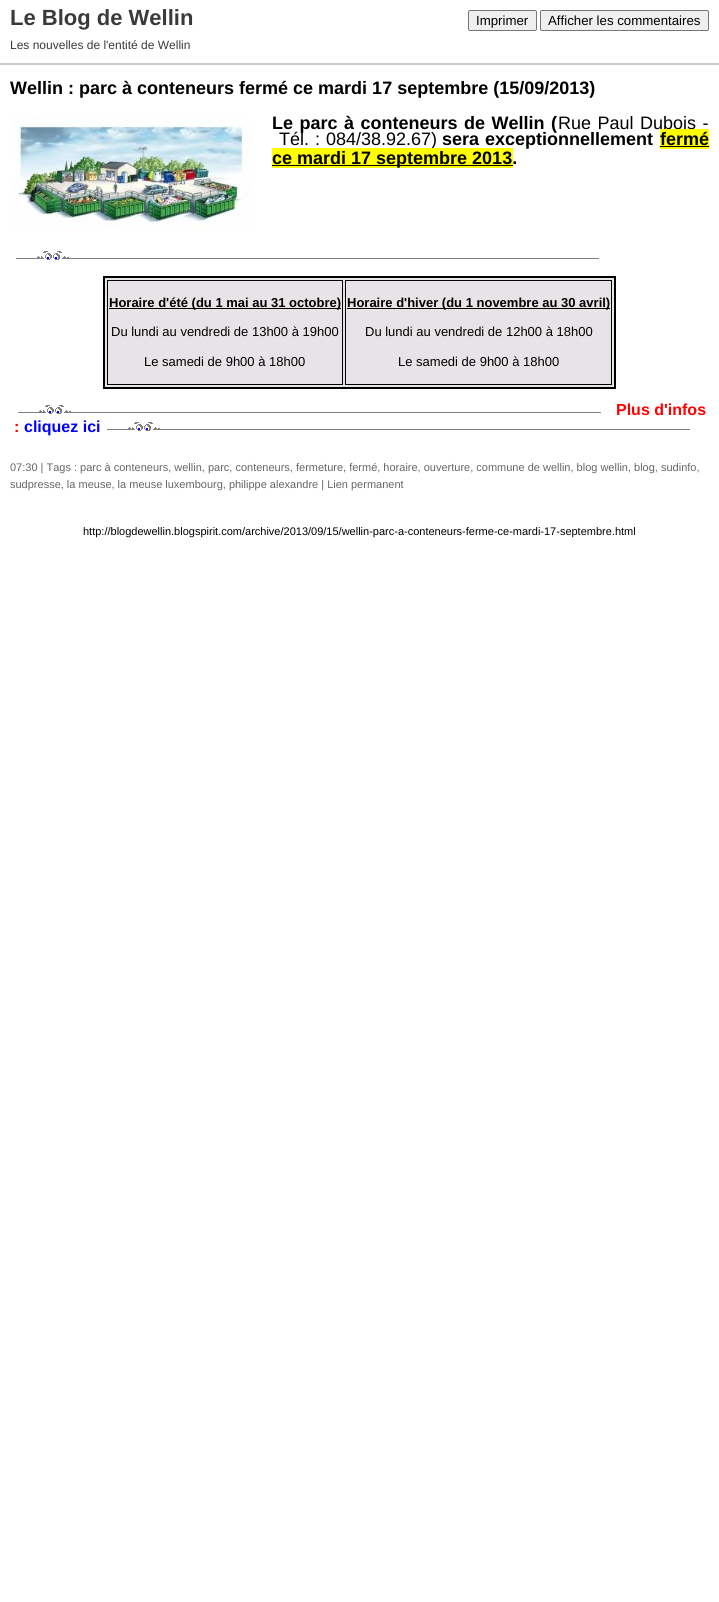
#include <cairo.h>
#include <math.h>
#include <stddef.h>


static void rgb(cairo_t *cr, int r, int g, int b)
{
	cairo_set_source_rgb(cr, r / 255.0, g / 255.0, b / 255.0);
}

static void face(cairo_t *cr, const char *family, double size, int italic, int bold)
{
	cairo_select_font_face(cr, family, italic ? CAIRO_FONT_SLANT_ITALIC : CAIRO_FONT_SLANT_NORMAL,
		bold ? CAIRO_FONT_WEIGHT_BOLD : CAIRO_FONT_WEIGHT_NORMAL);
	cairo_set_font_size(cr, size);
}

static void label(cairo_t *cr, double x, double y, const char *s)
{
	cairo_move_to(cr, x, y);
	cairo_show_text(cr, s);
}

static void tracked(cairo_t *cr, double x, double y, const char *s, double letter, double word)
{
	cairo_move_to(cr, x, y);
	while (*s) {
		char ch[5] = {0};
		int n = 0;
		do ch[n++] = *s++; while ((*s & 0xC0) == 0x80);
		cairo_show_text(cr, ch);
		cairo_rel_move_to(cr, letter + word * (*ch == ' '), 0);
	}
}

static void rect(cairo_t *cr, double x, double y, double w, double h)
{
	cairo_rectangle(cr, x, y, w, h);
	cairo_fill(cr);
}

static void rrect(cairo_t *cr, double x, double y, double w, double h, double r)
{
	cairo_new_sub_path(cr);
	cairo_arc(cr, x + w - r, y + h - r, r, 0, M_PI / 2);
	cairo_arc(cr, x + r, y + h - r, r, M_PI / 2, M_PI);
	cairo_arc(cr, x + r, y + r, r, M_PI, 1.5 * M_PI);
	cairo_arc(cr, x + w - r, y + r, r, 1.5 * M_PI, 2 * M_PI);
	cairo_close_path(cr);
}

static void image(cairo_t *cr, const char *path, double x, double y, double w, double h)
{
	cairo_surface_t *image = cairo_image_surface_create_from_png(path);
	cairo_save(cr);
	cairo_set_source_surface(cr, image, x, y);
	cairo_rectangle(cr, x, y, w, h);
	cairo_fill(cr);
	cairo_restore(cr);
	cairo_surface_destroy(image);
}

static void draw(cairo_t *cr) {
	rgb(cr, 255, 255, 255);
	cairo_paint(cr);
	rgb(cr, 204, 204, 204);
	rect(cr, 0, 63, 719, 2);
	face(cr, "Liberation Sans", 22, 0, 1);
	rgb(cr, 58, 58, 58);
	label(cr, 10, 25, "Le Blog de Wellin");
	rgb(cr, 239, 239, 239);
	rrect(cr, 468.5, 10.5, 68, 20, 1.5);
	cairo_fill_preserve(cr);
	rgb(cr, 118, 118, 118);
	cairo_set_line_width(cr, 1);
	cairo_stroke(cr);
	face(cr, "Liberation Sans", 13.25, 0, 0);
	rgb(cr, 0, 0, 0);
	label(cr, 476, 25, "Imprimer");
	rgb(cr, 239, 239, 239);
	rrect(cr, 540.5, 10.5, 168, 20, 1.5);
	cairo_fill_preserve(cr);
	rgb(cr, 118, 118, 118);
	cairo_stroke(cr);
	rgb(cr, 0, 0, 0);
	label(cr, 548, 25, "Afficher les commentaires");
	face(cr, "Liberation Sans", 12, 0, 0);
	rgb(cr, 58, 58, 58);
	label(cr, 10, 49, "Les nouvelles de l'entité de Wellin");
	face(cr, "Liberation Sans", 18, 0, 1);
	rgb(cr, 0, 0, 0);
	label(cr, 10, 94, "Wellin : parc à conteneurs fermé ce mardi 17 septembre (15/09/2013)");
	image(cr, "image0.png", 12, 118, 238, 112);
	tracked(cr, 272, 129, "Le parc à conteneurs de Wellin (", 0, 1.5);
	face(cr, "Liberation Sans", 18, 0, 0);
	tracked(cr, 558, 129, "Rue Paul Dubois -", 0, 1.5);
	tracked(cr, 279, 145, "Tél. : 084/38.92.67)", 0, 1);
	face(cr, "Liberation Sans", 18, 0, 1);
	tracked(cr, 442, 145, "sera exceptionnellement", 0, 1);
	rgb(cr, 255, 255, 0);
	rect(cr, 660, 129, 49, 20);
	rgb(cr, 0, 0, 0);
	label(cr, 660, 145, "fermé");
	rect(cr, 660, 146, 49, 1);
	rgb(cr, 255, 255, 0);
	rect(cr, 272, 148, 241, 20);
	rgb(cr, 0, 0, 0);
	rect(cr, 272, 165, 241, 1);
	label(cr, 272, 164, "ce mardi 17 septembre 2013.");
	image(cr, "image1.png", 16, 251, 583, 9);
	rgb(cr, 231, 227, 230);
	cairo_rectangle(cr, 104, 277, 511, 111);
	cairo_fill_preserve(cr);
	rgb(cr, 0, 0, 0);
	cairo_set_line_width(cr, 2);
	cairo_stroke(cr);
	cairo_rectangle(cr, 107.5, 280.5, 235, 104);
	cairo_set_line_width(cr, 1);
	cairo_stroke(cr);
	rect(cr, 109, 308, 232, 1);
	face(cr, "Liberation Sans", 13, 0, 1);
	label(cr, 109, 307, "Horaire d'été (du 1 mai au 31 octobre)");
	face(cr, "Liberation Sans", 13, 0, 0);
	label(cr, 111, 336, "Du lundi au vendredi de 13h00 à 19h00");
	label(cr, 144, 366, "Le samedi de 9h00 à 18h00");
	cairo_rectangle(cr, 345.5, 280.5, 266, 104);
	cairo_stroke(cr);
	rect(cr, 347, 308, 263, 1);
	face(cr, "Liberation Sans", 13, 0, 1);
	label(cr, 347, 307, "Horaire d'hiver (du 1 novembre au 30 avril)");
	face(cr, "Liberation Sans", 13, 0, 0);
	label(cr, 365, 336, "Du lundi au vendredi de 12h00 à 18h00");
	label(cr, 398, 366, "Le samedi de 9h00 à 18h00");
	image(cr, "image1.png", 18, 405, 583, 9);
	face(cr, "Liberation Sans", 16, 0, 1);
	rgb(cr, 255, 0, 0);
	label(cr, 616, 415, "Plus d'infos");
	label(cr, 14, 432, ":");
	rgb(cr, 0, 0, 255);
	label(cr, 24, 432, "cliquez ici");
	image(cr, "image1.png", 107, 422, 583, 9);
	face(cr, "Liberation Sans", 11, 0, 0);
	rgb(cr, 102, 102, 102);
	label(cr, 10, 471, "07:30 | Tags : parc à conteneurs, wellin, parc, conteneurs, fermeture, fermé, horaire, ouverture, commune de wellin, blog wellin, blog, sudinfo,");
	label(cr, 10, 488, "sudpresse, la meuse, la meuse luxembourg, philippe alexandre | Lien permanent");
	rgb(cr, 0, 0, 0);
	label(cr, 83, 535, "http://blogdewellin.blogspirit.com/archive/2013/09/15/wellin-parc-a-conteneurs-ferme-ce-mardi-17-septembre.html");
}

int main(void) {
	cairo_surface_t *surface = cairo_image_surface_create(CAIRO_FORMAT_RGB24, 719, 1602);
	cairo_t *cr = cairo_create(surface);
	cairo_font_options_t *options = cairo_font_options_create();
	cairo_font_options_set_hint_metrics(options, CAIRO_HINT_METRICS_OFF);
	cairo_font_options_set_hint_style(options, CAIRO_HINT_STYLE_NONE);
	cairo_set_font_options(cr, options);
	cairo_set_miter_limit(cr, 4);
	draw(cr);
	cairo_surface_write_to_png(surface, "render.png");
	cairo_font_options_destroy(options);
	cairo_destroy(cr);
	cairo_surface_destroy(surface);
	return 0;
}
